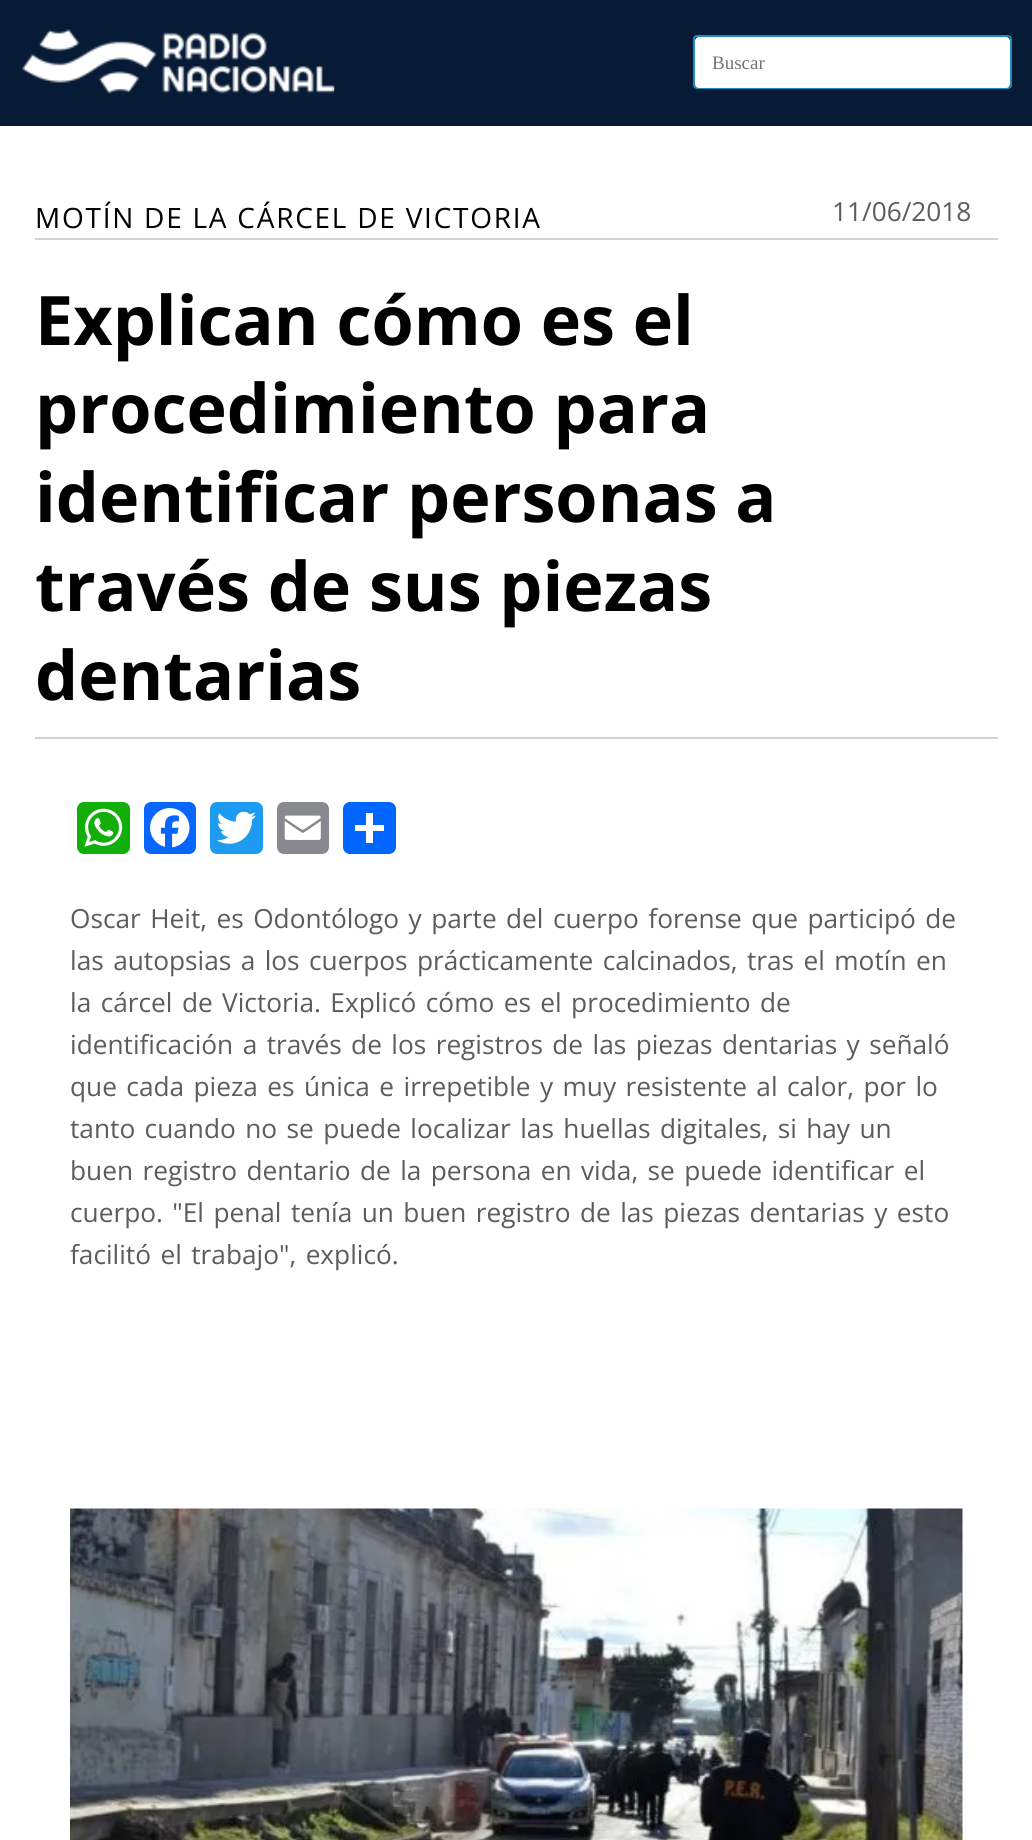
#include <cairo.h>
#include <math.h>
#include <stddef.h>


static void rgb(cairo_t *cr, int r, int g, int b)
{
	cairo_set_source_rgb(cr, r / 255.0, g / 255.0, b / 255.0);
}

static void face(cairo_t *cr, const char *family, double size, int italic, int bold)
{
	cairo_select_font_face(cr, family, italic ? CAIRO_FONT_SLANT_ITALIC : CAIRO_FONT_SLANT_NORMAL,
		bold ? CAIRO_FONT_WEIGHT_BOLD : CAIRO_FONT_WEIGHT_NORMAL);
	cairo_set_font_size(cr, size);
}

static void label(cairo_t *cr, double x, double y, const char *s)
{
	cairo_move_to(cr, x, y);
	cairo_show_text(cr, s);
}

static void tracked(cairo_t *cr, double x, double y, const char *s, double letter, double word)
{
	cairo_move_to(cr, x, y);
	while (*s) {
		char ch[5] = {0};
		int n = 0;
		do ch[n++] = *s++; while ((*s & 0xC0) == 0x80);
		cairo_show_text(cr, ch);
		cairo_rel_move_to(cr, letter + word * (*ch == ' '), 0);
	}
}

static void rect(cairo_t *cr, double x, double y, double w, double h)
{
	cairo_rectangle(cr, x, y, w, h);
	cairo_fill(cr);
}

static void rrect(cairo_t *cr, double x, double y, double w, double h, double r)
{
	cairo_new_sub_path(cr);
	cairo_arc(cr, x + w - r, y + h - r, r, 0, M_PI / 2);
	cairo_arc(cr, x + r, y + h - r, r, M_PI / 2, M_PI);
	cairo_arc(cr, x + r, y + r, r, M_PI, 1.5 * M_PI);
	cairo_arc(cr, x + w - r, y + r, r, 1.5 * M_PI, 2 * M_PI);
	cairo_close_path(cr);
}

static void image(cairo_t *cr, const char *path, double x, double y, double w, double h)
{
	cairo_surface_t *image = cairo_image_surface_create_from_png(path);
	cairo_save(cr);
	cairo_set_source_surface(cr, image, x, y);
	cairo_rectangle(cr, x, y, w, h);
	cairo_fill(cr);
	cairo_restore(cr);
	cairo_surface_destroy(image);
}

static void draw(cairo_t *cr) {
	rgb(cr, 255, 255, 255);
	cairo_paint(cr);
	rgb(cr, 7, 27, 54);
	rect(cr, 0, 0, 1032, 126);
	image(cr, "image0.png", 22, 29, 313, 65);
	rrect(cr, 694, 36, 317, 52, 3);
	rgb(cr, 30, 140, 190);
	cairo_stroke(cr);
	rgb(cr, 255, 255, 255);
	rrect(cr, 695, 37, 315, 51, 4);
	cairo_fill(cr);
	face(cr, "Liberation Serif", 19, 0, 0);
	rgb(cr, 117, 117, 117);
	label(cr, 712, 69, "Buscar");
	rgb(cr, 211, 211, 211);
	rect(cr, 35, 238, 963, 2);
	face(cr, "Open Sans", 28, 0, 0);
	rgb(cr, 0, 0, 0);
	tracked(cr, 35, 228, "MOTÍN DE LA CÁRCEL DE VICTORIA", 1.75, 0);
	face(cr, "Open Sans", 26.25, 0, 0);
	rgb(cr, 92, 92, 92);
	label(cr, 832, 221, "11/06/2018");
	rgb(cr, 211, 211, 211);
	rect(cr, 35, 737, 963, 2);
	face(cr, "Open Sans", 68.25, 0, 1);
	rgb(cr, 0, 0, 0);
	label(cr, 35, 345, "Explican cómo es el");
	label(cr, 35, 433, "procedimiento para");
	label(cr, 35, 522, "identificar personas a");
	label(cr, 35, 611, "través de sus piezas");
	label(cr, 35, 700, "dentarias");
	rgb(cr, 18, 175, 10);
	rrect(cr, 77, 802, 53, 52, 7);
	cairo_fill(cr);
	image(cr, "image1.png", 84, 808, 39, 39);
	rgb(cr, 8, 102, 255);
	rrect(cr, 144, 802, 52, 52, 7);
	cairo_fill(cr);
	image(cr, "image2.png", 150, 808, 40, 40);
	rgb(cr, 29, 155, 240);
	rrect(cr, 210, 802, 53, 52, 7);
	cairo_fill(cr);
	image(cr, "image3.png", 216, 811, 40, 33);
	rgb(cr, 136, 137, 144);
	rrect(cr, 277, 802, 52, 52, 7);
	cairo_fill(cr);
	image(cr, "image4.png", 284, 815, 37, 25);
	rgb(cr, 1, 102, 255);
	rrect(cr, 343, 802, 53, 52, 7);
	cairo_fill(cr);
	rgb(cr, 255, 255, 255);
	rect(cr, 366, 813, 7, 30);
	rect(cr, 355, 825, 29, 6);
	face(cr, "Open Sans", 26.25, 0, 0);
	rgb(cr, 92, 92, 92);
	tracked(cr, 70, 928, "Oscar Heit, es Odontólogo y parte del cuerpo forense que participó de", 0, 2.6);
	tracked(cr, 70, 970, "las autopsias a los cuerpos prácticamente calcinados, tras el motín en", 0, 2.6);
	tracked(cr, 70, 1012, "la cárcel de Victoria. Explicó cómo es el procedimiento de", 0, 2.6);
	tracked(cr, 70, 1054, "identificación a través de los registros de las piezas dentarias y señaló", 0, 2.6);
	tracked(cr, 70, 1096, "que cada pieza es única e irrepetible y muy resistente al calor, por lo", 0, 2.6);
	tracked(cr, 70, 1138, "tanto cuando no se puede localizar las huellas digitales, si hay un", 0, 2.6);
	tracked(cr, 70, 1180, "buen registro dentario de la persona en vida, se puede identificar el", 0, 2.6);
	tracked(cr, 70, 1222, "cuerpo. \"El penal tenía un buen registro de las piezas dentarias y esto", 0, 2.6);
	tracked(cr, 70, 1264, "facilitó el trabajo\", explicó.", 0, 2.6);
	image(cr, "image5.png", 70, 1508, 893, 332);
}

int main(void) {
	cairo_surface_t *surface = cairo_image_surface_create(CAIRO_FORMAT_RGB24, 1032, 1840);
	cairo_t *cr = cairo_create(surface);
	cairo_font_options_t *options = cairo_font_options_create();
	cairo_font_options_set_hint_metrics(options, CAIRO_HINT_METRICS_OFF);
	cairo_font_options_set_hint_style(options, CAIRO_HINT_STYLE_NONE);
	cairo_set_font_options(cr, options);
	cairo_set_miter_limit(cr, 4);
	draw(cr);
	cairo_surface_write_to_png(surface, "render.png");
	cairo_font_options_destroy(options);
	cairo_destroy(cr);
	cairo_surface_destroy(surface);
	return 0;
}
